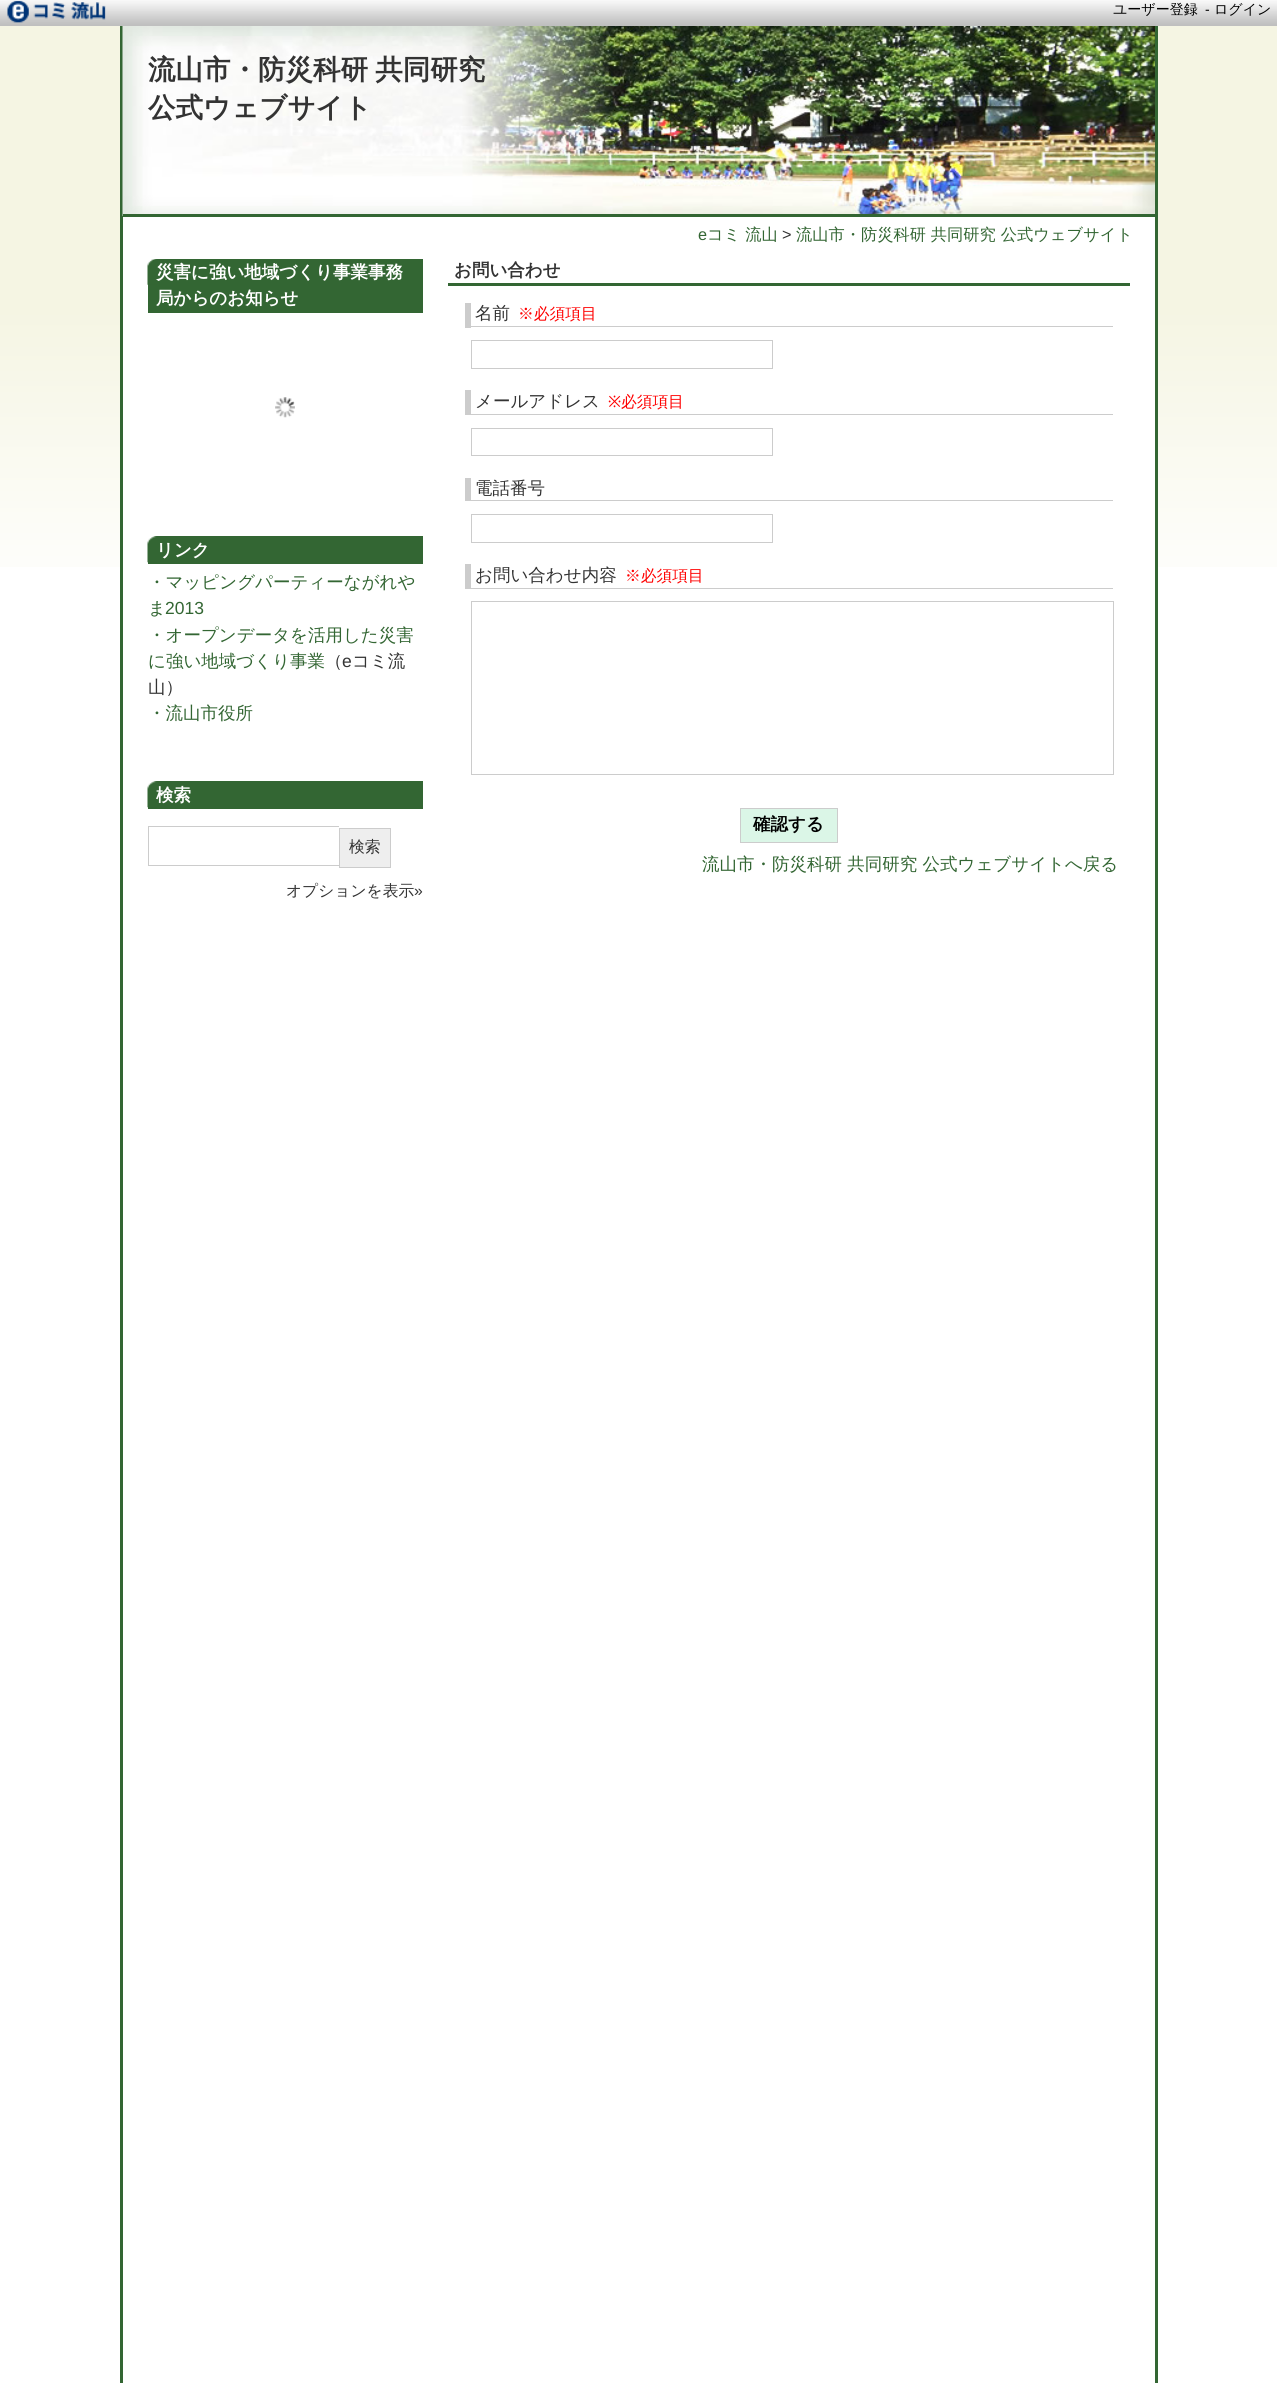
#include <cairo.h>
#include <math.h>
#include <stddef.h>


static void rgb(cairo_t *cr, int r, int g, int b)
{
	cairo_set_source_rgb(cr, r / 255.0, g / 255.0, b / 255.0);
}

static void face(cairo_t *cr, const char *family, double size, int italic, int bold)
{
	cairo_select_font_face(cr, family, italic ? CAIRO_FONT_SLANT_ITALIC : CAIRO_FONT_SLANT_NORMAL,
		bold ? CAIRO_FONT_WEIGHT_BOLD : CAIRO_FONT_WEIGHT_NORMAL);
	cairo_set_font_size(cr, size);
}

static void label(cairo_t *cr, double x, double y, const char *s)
{
	cairo_move_to(cr, x, y);
	cairo_show_text(cr, s);
}

static void tracked(cairo_t *cr, double x, double y, const char *s, double letter, double word)
{
	cairo_move_to(cr, x, y);
	while (*s) {
		char ch[5] = {0};
		int n = 0;
		do ch[n++] = *s++; while ((*s & 0xC0) == 0x80);
		cairo_show_text(cr, ch);
		cairo_rel_move_to(cr, letter + word * (*ch == ' '), 0);
	}
}

static void rect(cairo_t *cr, double x, double y, double w, double h)
{
	cairo_rectangle(cr, x, y, w, h);
	cairo_fill(cr);
}

static void image(cairo_t *cr, const char *path, double x, double y, double w, double h)
{
	cairo_surface_t *image = cairo_image_surface_create_from_png(path);
	cairo_save(cr);
	cairo_set_source_surface(cr, image, x, y);
	cairo_rectangle(cr, x, y, w, h);
	cairo_fill(cr);
	cairo_restore(cr);
	cairo_surface_destroy(image);
}

static void draw(cairo_t *cr) {
	rgb(cr, 255, 255, 255);
	cairo_paint(cr);
	image(cr, "image0.png", 0, 26, 1277, 541);
	image(cr, "image1.png", 0, 0, 1277, 26);
	image(cr, "image2.png", 7, 0, 99, 23);
	face(cr, "WenQuanYi Zen Hei Medium", 14, 0, 0);
	rgb(cr, 0, 0, 0);
	label(cr, 1113, 14, "ユーザー登録");
	face(cr, "Liberation Sans", 14, 0, 0);
	label(cr, 1205, 14, "-");
	face(cr, "WenQuanYi Zen Hei Medium", 14, 0, 0);
	label(cr, 1214, 14, "ログイン");
	rgb(cr, 255, 255, 255);
	rect(cr, 123, 217, 1032, 350);
	rgb(cr, 51, 102, 51);
	rect(cr, 1155, 26, 3, 2357);
	rect(cr, 120, 26, 3, 2357);
	image(cr, "image3.png", 122, 26, 1033, 190);
	rect(cr, 123, 214, 1032, 3);
	face(cr, "WenQuanYi Zen Hei", 27.5, 0, 1);
	rgb(cr, 51, 51, 51);
	tracked(cr, 148, 79, "流山市・防災科研 共同研究", 0, -1);
	label(cr, 148, 117, "公式ウェブサイト");
	face(cr, "Liberation Sans", 16.25, 0, 0);
	rgb(cr, 51, 102, 51);
	label(cr, 698, 240, "e");
	face(cr, "WenQuanYi Zen Hei Medium", 16.25, 0, 0);
	label(cr, 707, 240, "コミ 流山");
	face(cr, "Liberation Sans", 16.25, 0, 0);
	rgb(cr, 51, 51, 51);
	label(cr, 782, 240, ">");
	face(cr, "WenQuanYi Zen Hei Medium", 16.25, 0, 0);
	rgb(cr, 51, 102, 51);
	label(cr, 796, 240, "流山市・防災科研 共同研究 公式ウェブサイト");
	rect(cr, 148, 259, 275, 54);
	image(cr, "image4.png", 147, 258, 10, 27);
	rgb(cr, 255, 255, 255);
	rect(cr, 148, 258, 9, 1);
	face(cr, "WenQuanYi Zen Hei", 17.5, 0, 1);
	label(cr, 156, 278, "災害に強い地域づくり事業事務");
	label(cr, 156, 304, "局からのお知らせ");
	image(cr, "image5.png", 275, 397, 20, 21);
	rgb(cr, 51, 102, 51);
	rect(cr, 148, 536, 275, 28);
	image(cr, "image6.png", 147, 536, 10, 27);
	rgb(cr, 255, 255, 255);
	label(cr, 156, 556, "リンク");
	face(cr, "WenQuanYi Zen Hei Medium", 17.5, 0, 0);
	rgb(cr, 51, 102, 51);
	label(cr, 148, 588, "・マッピングパーティーながれや");
	label(cr, 148, 614, "ま");
	face(cr, "Liberation Sans", 17.5, 0, 0);
	label(cr, 165, 614, "2013");
	face(cr, "WenQuanYi Zen Hei Medium", 17.5, 0, 0);
	label(cr, 148, 641, "・オープンデータを活用した災害");
	label(cr, 148, 667, "に強い地域づくり事業");
	rgb(cr, 51, 51, 51);
	label(cr, 325, 667, "（");
	face(cr, "Liberation Sans", 17.5, 0, 0);
	label(cr, 342, 667, "e");
	face(cr, "WenQuanYi Zen Hei Medium", 17.5, 0, 0);
	label(cr, 352, 667, "コミ流");
	label(cr, 148, 693, "山）");
	rgb(cr, 51, 102, 51);
	label(cr, 148, 719, "・流山市役所");
	rect(cr, 148, 781, 275, 28);
	image(cr, "image6.png", 147, 781, 10, 27);
	face(cr, "WenQuanYi Zen Hei", 17.5, 0, 1);
	rgb(cr, 255, 255, 255);
	label(cr, 156, 801, "検索");
	rgb(cr, 204, 204, 204);
	rect(cr, 148, 826, 191, 1);
	rect(cr, 148, 865, 191, 1);
	rect(cr, 148, 826, 1, 40);
	rgb(cr, 238, 238, 238);
	cairo_rectangle(cr, 339.5, 828.5, 51, 39);
	cairo_fill_preserve(cr);
	rgb(cr, 204, 204, 204);
	cairo_set_line_width(cr, 1);
	cairo_stroke(cr);
	face(cr, "WenQuanYi Zen Hei Medium", 15.75, 0, 0);
	rgb(cr, 51, 51, 51);
	label(cr, 349, 852, "検索");
	label(cr, 286, 896, "オプションを表示");
	face(cr, "Liberation Sans", 15.75, 0, 0);
	label(cr, 414, 896, "»");
	rgb(cr, 51, 102, 51);
	rect(cr, 448, 283, 682, 3);
	face(cr, "WenQuanYi Zen Hei", 17.5, 0, 1);
	rgb(cr, 51, 51, 51);
	label(cr, 454, 276, "お問い合わせ");
	rgb(cr, 204, 204, 204);
	rect(cr, 465, 326, 648, 1);
	rect(cr, 465, 303, 6, 25);
	face(cr, "WenQuanYi Zen Hei Medium", 17.5, 0, 0);
	rgb(cr, 51, 51, 51);
	label(cr, 475, 319, "名前");
	face(cr, "WenQuanYi Zen Hei Medium", 15.75, 0, 0);
	rgb(cr, 255, 0, 0);
	label(cr, 518, 319, "※必須項目");
	cairo_rectangle(cr, 471.5, 340.5, 301, 28);
	rgb(cr, 204, 204, 204);
	cairo_stroke(cr);
	rect(cr, 465, 414, 648, 1);
	rect(cr, 465, 390, 6, 25);
	face(cr, "WenQuanYi Zen Hei Medium", 17.5, 0, 0);
	rgb(cr, 51, 51, 51);
	label(cr, 475, 407, "メールアドレス");
	face(cr, "Noto Sans", 15.75, 0, 0);
	rgb(cr, 255, 0, 0);
	label(cr, 608, 407, "※");
	face(cr, "WenQuanYi Zen Hei Medium", 15.75, 0, 0);
	label(cr, 621, 407, "必須項目");
	cairo_rectangle(cr, 471.5, 428.5, 301, 27);
	rgb(cr, 204, 204, 204);
	cairo_stroke(cr);
	rect(cr, 465, 500, 648, 1);
	rect(cr, 465, 478, 6, 23);
	face(cr, "WenQuanYi Zen Hei Medium", 17.5, 0, 0);
	rgb(cr, 51, 51, 51);
	label(cr, 475, 494, "電話番号");
	cairo_rectangle(cr, 471.5, 514.5, 301, 28);
	rgb(cr, 204, 204, 204);
	cairo_stroke(cr);
	rect(cr, 465, 588, 648, 1);
	rect(cr, 465, 564, 6, 25);
	rgb(cr, 51, 51, 51);
	label(cr, 475, 581, "お問い合わせ内容");
	face(cr, "WenQuanYi Zen Hei Medium", 15.75, 0, 0);
	rgb(cr, 255, 0, 0);
	label(cr, 625, 581, "※必須項目");
	cairo_rectangle(cr, 471.5, 601.5, 642, 173);
	rgb(cr, 204, 204, 204);
	cairo_stroke(cr);
	rgb(cr, 219, 246, 231);
	cairo_rectangle(cr, 740.5, 808.5, 97, 34);
	cairo_fill_preserve(cr);
	rgb(cr, 204, 204, 204);
	cairo_stroke(cr);
	face(cr, "WenQuanYi Zen Hei", 17.5, 0, 1);
	rgb(cr, 0, 0, 0);
	label(cr, 753, 830, "確認する");
	face(cr, "WenQuanYi Zen Hei Medium", 17.5, 0, 0);
	rgb(cr, 51, 102, 51);
	label(cr, 702, 870, "流山市・防災科研 共同研究 公式ウェブサイトへ戻る");
}

int main(void) {
	cairo_surface_t *surface = cairo_image_surface_create(CAIRO_FORMAT_RGB24, 1277, 2383);
	cairo_t *cr = cairo_create(surface);
	cairo_font_options_t *options = cairo_font_options_create();
	cairo_font_options_set_hint_metrics(options, CAIRO_HINT_METRICS_OFF);
	cairo_font_options_set_hint_style(options, CAIRO_HINT_STYLE_NONE);
	cairo_set_font_options(cr, options);
	cairo_set_miter_limit(cr, 4);
	draw(cr);
	cairo_surface_write_to_png(surface, "render.png");
	cairo_font_options_destroy(options);
	cairo_destroy(cr);
	cairo_surface_destroy(surface);
	return 0;
}
